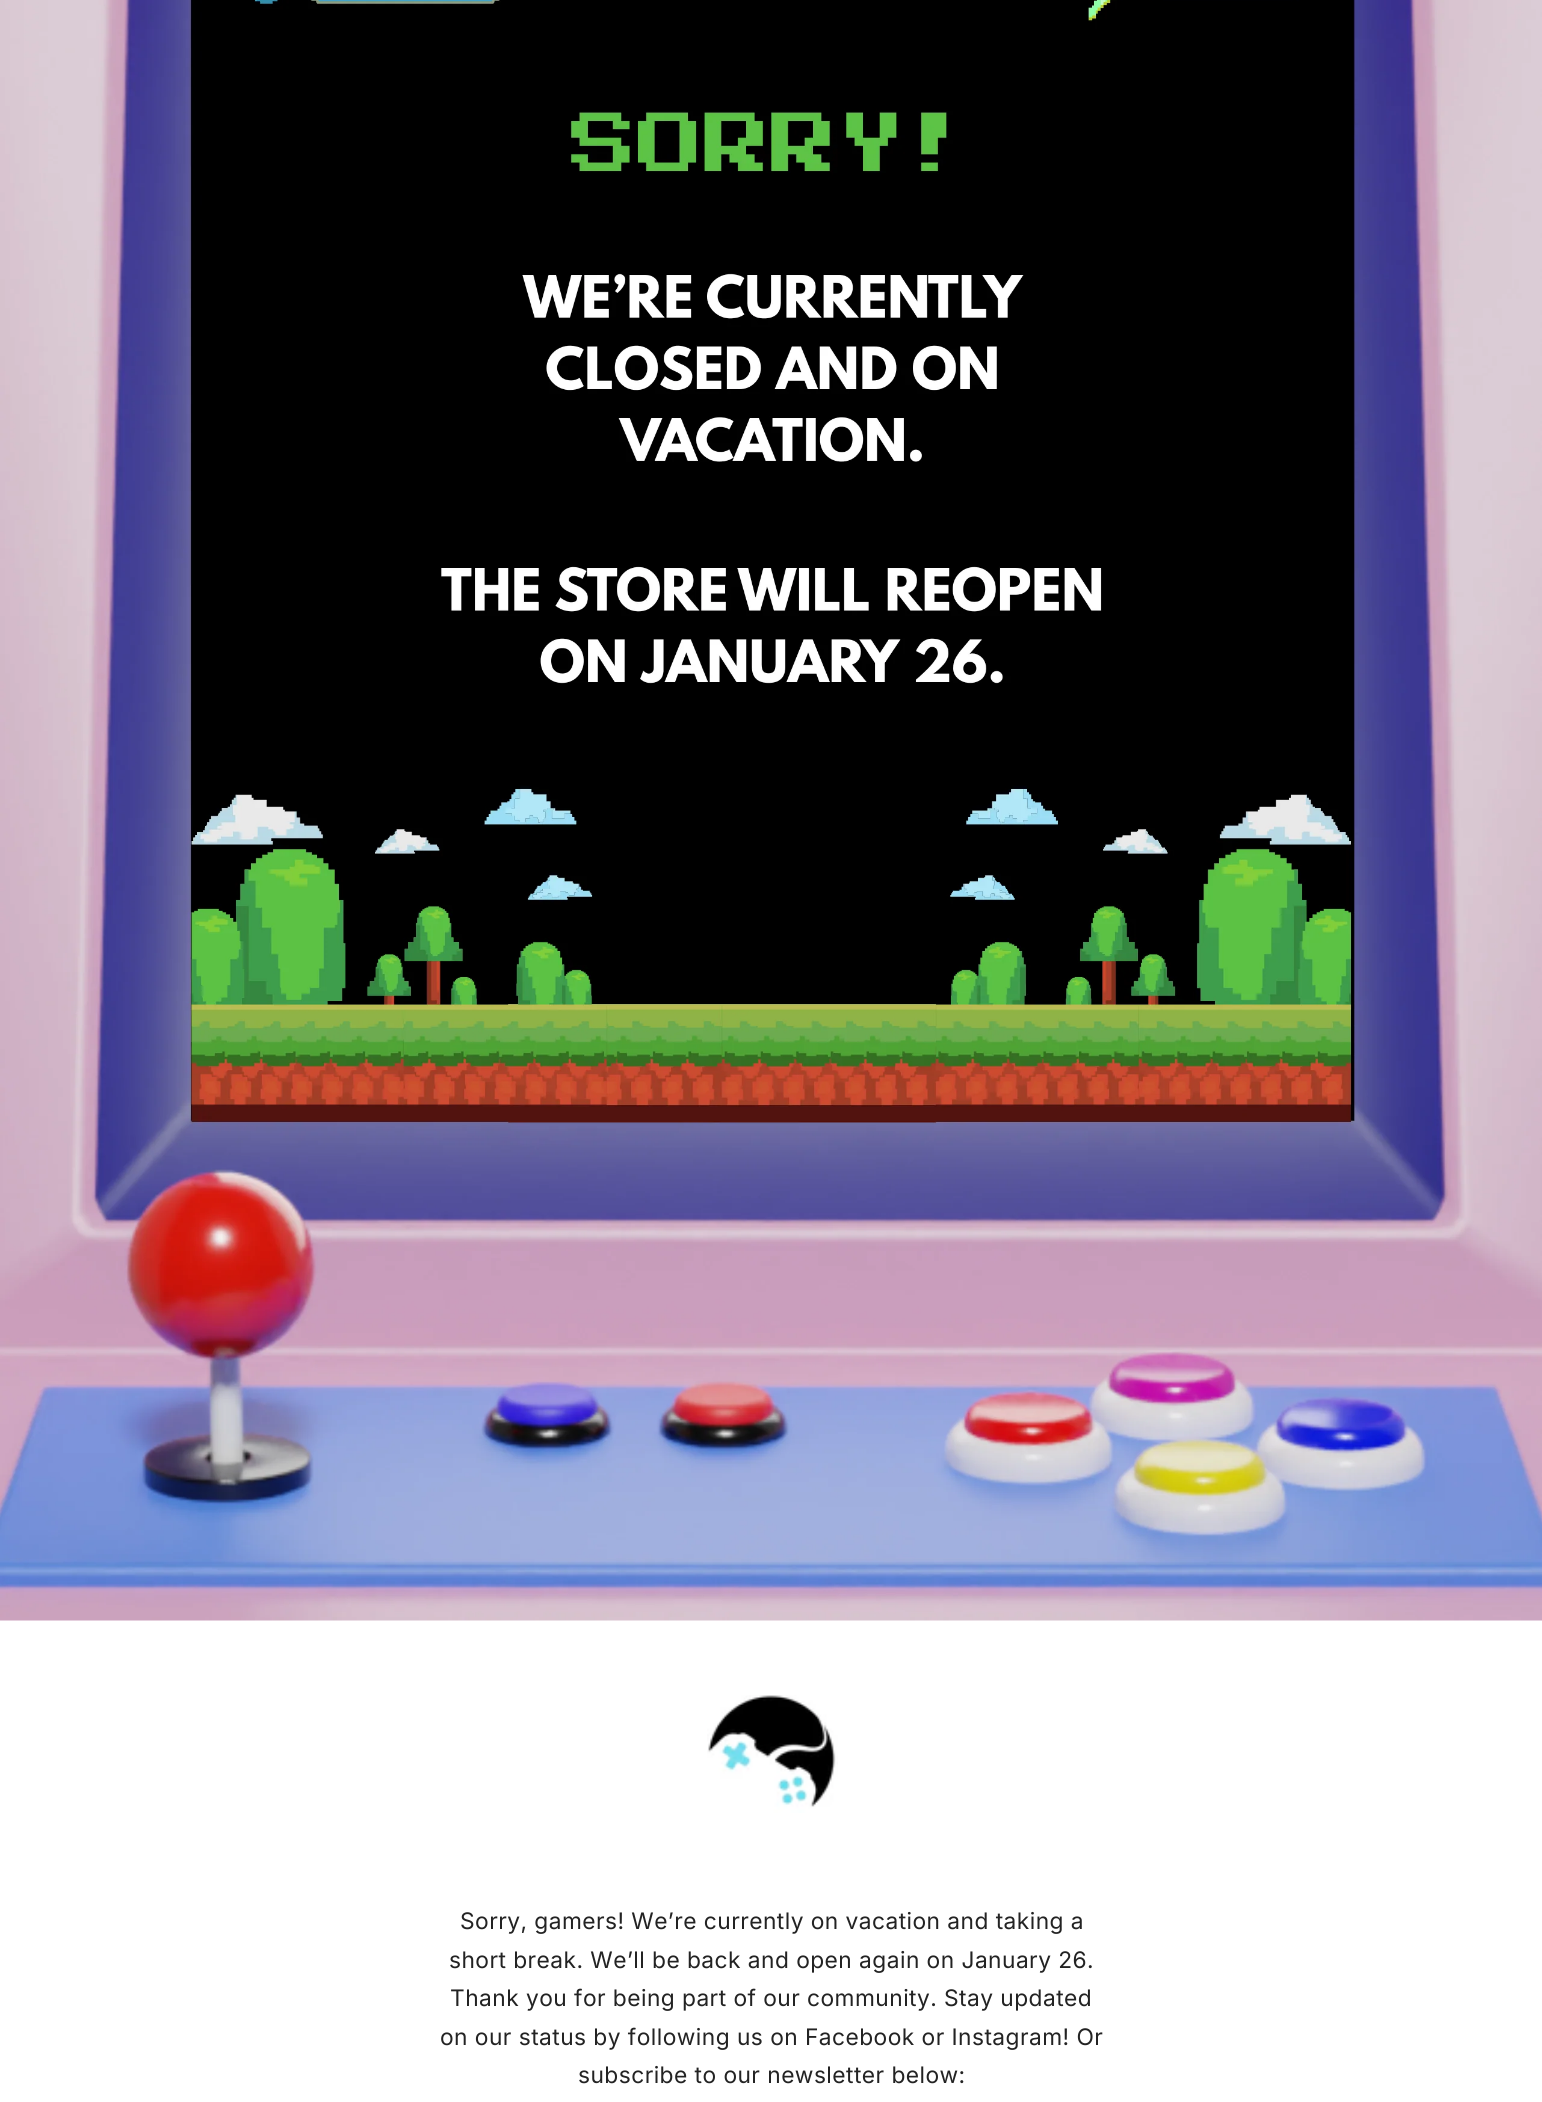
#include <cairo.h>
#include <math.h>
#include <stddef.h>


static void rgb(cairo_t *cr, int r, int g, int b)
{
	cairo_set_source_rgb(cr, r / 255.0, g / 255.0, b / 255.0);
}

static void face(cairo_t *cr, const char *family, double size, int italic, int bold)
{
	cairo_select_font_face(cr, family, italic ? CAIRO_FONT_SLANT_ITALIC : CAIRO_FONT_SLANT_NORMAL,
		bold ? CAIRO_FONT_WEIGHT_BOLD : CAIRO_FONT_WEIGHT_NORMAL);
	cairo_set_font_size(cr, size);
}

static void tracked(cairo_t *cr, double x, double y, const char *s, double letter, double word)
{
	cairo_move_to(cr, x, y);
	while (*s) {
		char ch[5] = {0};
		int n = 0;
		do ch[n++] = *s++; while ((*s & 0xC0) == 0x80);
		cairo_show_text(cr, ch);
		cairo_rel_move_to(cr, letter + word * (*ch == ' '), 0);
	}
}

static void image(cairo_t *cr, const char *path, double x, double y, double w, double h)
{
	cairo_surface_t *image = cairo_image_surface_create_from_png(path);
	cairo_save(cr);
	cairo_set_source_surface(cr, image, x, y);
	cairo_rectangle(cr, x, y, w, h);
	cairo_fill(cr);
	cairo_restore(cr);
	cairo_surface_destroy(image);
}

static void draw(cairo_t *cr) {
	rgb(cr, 255, 255, 255);
	cairo_paint(cr);
	image(cr, "image0.png", 0, 0, 1542, 1621);
	image(cr, "image1.png", 707, 1695, 131, 118);
	face(cr, "Inter", 22.75, 0, 0);
	rgb(cr, 35, 35, 35);
	tracked(cr, 460, 1929, "Sorry, gamers! We’re currently on vacation and taking a", 0.45, 0);
	tracked(cr, 449, 1968, "short break. We’ll be back and open again on January 26.", 0.45, 0);
	tracked(cr, 450, 2006, "Thank you for being part of our community. Stay updated", 0.45, 0);
	tracked(cr, 440, 2045, "on our status by following us on Facebook or Instagram! Or", 0.45, 0);
	tracked(cr, 578, 2083, "subscribe to our newsletter below:", 0.45, 0);
}

int main(void) {
	cairo_surface_t *surface = cairo_image_surface_create(CAIRO_FORMAT_RGB24, 1542, 2102);
	cairo_t *cr = cairo_create(surface);
	cairo_font_options_t *options = cairo_font_options_create();
	cairo_font_options_set_hint_metrics(options, CAIRO_HINT_METRICS_OFF);
	cairo_font_options_set_hint_style(options, CAIRO_HINT_STYLE_NONE);
	cairo_set_font_options(cr, options);
	cairo_set_miter_limit(cr, 4);
	draw(cr);
	cairo_surface_write_to_png(surface, "render.png");
	cairo_font_options_destroy(options);
	cairo_destroy(cr);
	cairo_surface_destroy(surface);
	return 0;
}
